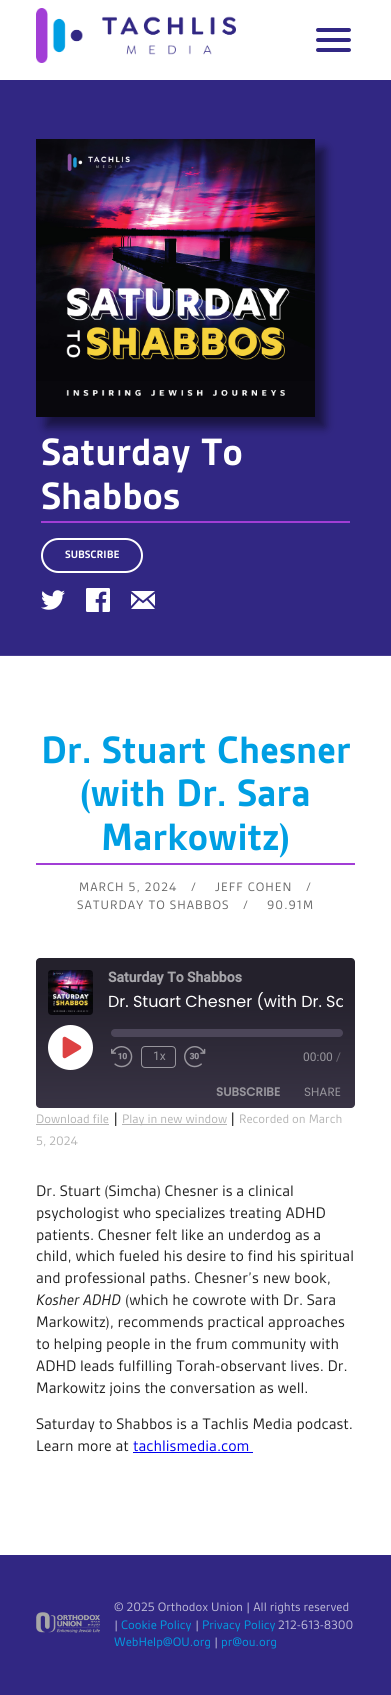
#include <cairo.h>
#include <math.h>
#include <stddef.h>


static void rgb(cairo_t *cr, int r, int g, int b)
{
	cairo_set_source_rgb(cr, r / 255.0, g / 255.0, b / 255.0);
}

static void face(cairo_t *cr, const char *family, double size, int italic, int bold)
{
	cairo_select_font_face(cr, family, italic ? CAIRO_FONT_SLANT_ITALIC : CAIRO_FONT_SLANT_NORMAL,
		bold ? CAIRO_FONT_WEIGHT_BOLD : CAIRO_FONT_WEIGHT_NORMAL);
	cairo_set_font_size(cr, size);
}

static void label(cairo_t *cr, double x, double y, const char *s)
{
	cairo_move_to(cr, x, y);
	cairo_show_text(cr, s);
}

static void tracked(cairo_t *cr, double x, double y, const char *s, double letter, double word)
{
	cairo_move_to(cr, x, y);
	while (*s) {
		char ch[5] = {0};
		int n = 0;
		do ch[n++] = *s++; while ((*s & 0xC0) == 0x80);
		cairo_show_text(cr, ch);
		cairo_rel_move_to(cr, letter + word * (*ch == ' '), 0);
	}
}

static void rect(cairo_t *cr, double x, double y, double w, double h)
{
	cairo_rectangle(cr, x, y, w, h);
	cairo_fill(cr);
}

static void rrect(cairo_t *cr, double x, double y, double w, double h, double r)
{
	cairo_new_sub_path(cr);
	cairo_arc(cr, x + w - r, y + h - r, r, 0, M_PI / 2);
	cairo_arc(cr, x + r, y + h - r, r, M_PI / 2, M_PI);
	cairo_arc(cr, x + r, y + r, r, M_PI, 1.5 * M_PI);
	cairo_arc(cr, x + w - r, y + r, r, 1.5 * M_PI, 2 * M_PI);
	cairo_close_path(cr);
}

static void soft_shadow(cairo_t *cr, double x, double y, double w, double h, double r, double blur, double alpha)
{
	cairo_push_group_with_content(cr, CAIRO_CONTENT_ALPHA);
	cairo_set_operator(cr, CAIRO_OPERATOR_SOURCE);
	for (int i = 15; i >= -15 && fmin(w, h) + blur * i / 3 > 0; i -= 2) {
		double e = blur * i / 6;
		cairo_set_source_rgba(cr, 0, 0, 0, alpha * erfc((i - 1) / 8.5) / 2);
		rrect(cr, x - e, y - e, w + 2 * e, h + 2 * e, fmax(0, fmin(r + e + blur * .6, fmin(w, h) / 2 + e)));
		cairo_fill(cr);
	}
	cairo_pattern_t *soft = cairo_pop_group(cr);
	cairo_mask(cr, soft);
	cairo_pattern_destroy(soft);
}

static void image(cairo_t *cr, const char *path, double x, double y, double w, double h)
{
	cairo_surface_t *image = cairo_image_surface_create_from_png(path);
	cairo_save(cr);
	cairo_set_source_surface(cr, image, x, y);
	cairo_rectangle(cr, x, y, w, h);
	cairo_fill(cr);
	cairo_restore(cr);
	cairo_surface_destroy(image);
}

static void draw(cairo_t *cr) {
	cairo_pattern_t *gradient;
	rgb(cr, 255, 255, 255);
	cairo_paint(cr);
	image(cr, "image0.png", 36, 8, 200, 55);
	rgb(cr, 49, 39, 131);
	rrect(cr, 316, 28, 35, 4, 2);
	cairo_fill(cr);
	rrect(cr, 316, 38, 35, 4, 2);
	cairo_fill(cr);
	rrect(cr, 316, 48, 35, 4, 2);
	cairo_fill(cr);
	rect(cr, 0, 80, 391, 575);
	rgb(cr, 70, 61, 143);
	rect(cr, 0, 655, 391, 1);
	rgb(cr, 0, 0, 0);
	soft_shadow(cr, 46, 149, 279, 278, 0, 5, 0.5);
	image(cr, "image1.png", 36, 139, 279, 278);
	rgb(cr, 162, 62, 214);
	rect(cr, 41, 521, 309, 2);
	face(cr, "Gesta", 36.5, 0, 1);
	rgb(cr, 255, 255, 255);
	label(cr, 41, 465, "Saturday To");
	label(cr, 41, 509, "Shabbos");
	rrect(cr, 42, 539, 100, 33, 16.5);
	cairo_stroke(cr);
	face(cr, "Gesta", 10.25, 0, 1);
	label(cr, 65, 558, "SUBSCRIBE");
	image(cr, "image2.png", 41, 590, 24, 20);
	image(cr, "image3.png", 86, 588, 24, 24);
	image(cr, "image4.png", 131, 591, 24, 18);
	rgb(cr, 162, 62, 214);
	rect(cr, 36, 863, 319, 2);
	face(cr, "Gesta", 36.5, 0, 1);
	rgb(cr, 0, 159, 227);
	label(cr, 41, 763, "Dr. Stuart Chesner");
	label(cr, 80, 806, "(with Dr. Sara");
	label(cr, 101, 850, "Markowitz)");
	face(cr, "Gesta", 11.7, 0, 0);
	rgb(cr, 102, 102, 102);
	tracked(cr, 79, 891, "MARCH 5, 2024", 1, 0);
	tracked(cr, 191, 891, "/", 1, 0);
	tracked(cr, 215, 891, "JEFF COHEN", 1, 0);
	tracked(cr, 306, 891, "/", 1, 0);
	tracked(cr, 77, 909, "SATURDAY TO SHABBOS", 1, 0);
	tracked(cr, 243, 909, "/", 1, 0);
	tracked(cr, 267, 909, "90.91M", 1, 0);
	gradient = cairo_pattern_create_linear(196, 1109, 195, 957);
	cairo_pattern_add_color_stop_rgba(gradient, 0.01, 0.22, 0.2, 0.267, 1);
	cairo_pattern_add_color_stop_rgba(gradient, 0.78, 0.141, 0.129, 0.173, 1);
	cairo_set_source(cr, gradient);
	cairo_pattern_destroy(gradient);
	rrect(cr, 36, 958, 319, 150, 4);
	cairo_fill(cr);
	image(cr, "image5.png", 48, 970, 45, 45);
	face(cr, "Roboto", 14, 0, 1);
	rgb(cr, 167, 166, 171);
	label(cr, 108, 982, "Saturday To Shabbos");
	cairo_save(cr);
	cairo_rectangle(cr, 108, 992, 235, 25);
	cairo_clip(cr);
	face(cr, "Poppins", 16, 0, 0);
	rgb(cr, 255, 255, 255);
	label(cr, 108, 1007, "Dr. Stuart Chesner (with Dr. Sa");
	cairo_restore(cr);
	rgb(cr, 255, 255, 255);
	cairo_new_path(cr);
	cairo_arc(cr, 70.5, 1047.5, 22.5, 0, 2 * M_PI);
	cairo_fill(cr);
	image(cr, "image6.png", 62, 1036, 20, 23);
	rgb(cr, 76, 70, 89);
	rrect(cr, 111, 1029, 232, 8, 4);
	cairo_fill(cr);
	image(cr, "image7.png", 111, 1046, 22, 22);
	rrect(cr, 141.5, 1046.5, 34, 21, 3.5);
	cairo_set_source_rgba(cr, 1, 1, 1, 0.5);
	cairo_set_line_width(cr, 1);
	cairo_stroke(cr);
	face(cr, "Roboto", 12, 0, 0);
	rgb(cr, 151, 149, 156);
	label(cr, 153, 1060, "1x");
	image(cr, "image8.png", 184, 1046, 22, 22);
	label(cr, 303, 1061, "00:00");
	rgb(cr, 110, 107, 117);
	label(cr, 336, 1061, "/");
	face(cr, "Poppins", 12, 0, 1);
	rgb(cr, 151, 149, 156);
	label(cr, 216, 1096, "SUBSCRIBE");
	face(cr, "Poppins", 12, 0, 0);
	label(cr, 304, 1096, "SHARE");
	face(cr, "Gesta", 11.7, 0, 0);
	rgb(cr, 179, 179, 179);
	label(cr, 36, 1123, "Download file");
	rect(cr, 36, 1124, 73, 1);
	face(cr, "Gesta", 14.6, 0, 0);
	rgb(cr, 34, 34, 34);
	label(cr, 113, 1123, "|");
	rgb(cr, 179, 179, 179);
	rect(cr, 122, 1124, 105, 1);
	face(cr, "Gesta", 11.7, 0, 0);
	label(cr, 122, 1123, "Play in new window");
	face(cr, "Gesta", 14.6, 0, 0);
	rgb(cr, 34, 34, 34);
	label(cr, 230, 1123, "|");
	face(cr, "Gesta", 11.7, 0, 0);
	rgb(cr, 179, 179, 179);
	label(cr, 239, 1123, "Recorded on March");
	label(cr, 36, 1145, "5, 2024");
	face(cr, "Gesta", 14.6, 0, 0);
	rgb(cr, 34, 34, 34);
	label(cr, 36, 1196, "Dr. Stuart (Simcha) Chesner is a clinical");
	label(cr, 36, 1218, "psychologist who specializes treating ADHD");
	label(cr, 36, 1240, "patients. Chesner felt like an underdog as a");
	label(cr, 36, 1261, "child, which fueled his desire to find his spiritual");
	label(cr, 36, 1283, "and professional paths. Chesner’s new book,");
	face(cr, "Gesta", 14.6, 1, 0);
	label(cr, 36, 1305, "Kosher ADHD");
	face(cr, "Gesta", 14.6, 0, 0);
	label(cr, 125, 1305, "(which he cowrote with Dr. Sara");
	label(cr, 36, 1327, "Markowitz), recommends practical approaches");
	label(cr, 36, 1349, "to helping people in the frum community with");
	label(cr, 36, 1371, "ADHD leads fulfilling Torah-observant lives. Dr.");
	label(cr, 36, 1393, "Markowitz joins the conversation as well.");
	label(cr, 36, 1429, "Saturday to Shabbos is a Tachlis Media podcast.");
	label(cr, 36, 1451, "Learn more at");
	rgb(cr, 0, 0, 238);
	label(cr, 133, 1451, "tachlismedia.com");
	rect(cr, 133, 1452, 120, 1);
	rgb(cr, 49, 39, 131);
	rect(cr, 0, 1555, 391, 140);
	image(cr, "image9.png", 36, 1612, 64, 21);
	face(cr, "Gesta", 11.7, 0, 0);
	rgb(cr, 193, 190, 218);
	label(cr, 114, 1611, "© 2025 Orthodox Union | All rights reserved");
	label(cr, 114, 1629, "|");
	rgb(cr, 0, 159, 227);
	label(cr, 121, 1629, "Cookie Policy");
	rgb(cr, 193, 190, 218);
	label(cr, 195, 1629, "|");
	rgb(cr, 0, 159, 227);
	label(cr, 202, 1629, "Privacy Policy");
	rgb(cr, 193, 190, 218);
	label(cr, 278, 1629, "212-613-8300");
	rgb(cr, 0, 159, 227);
	label(cr, 114, 1646, "WebHelp@OU.org");
	rgb(cr, 193, 190, 218);
	label(cr, 214, 1646, "|");
	rgb(cr, 0, 159, 227);
	label(cr, 221, 1646, "pr@ou.org");
}

int main(void) {
	cairo_surface_t *surface = cairo_image_surface_create(CAIRO_FORMAT_RGB24, 391, 1695);
	cairo_t *cr = cairo_create(surface);
	cairo_font_options_t *options = cairo_font_options_create();
	cairo_font_options_set_hint_metrics(options, CAIRO_HINT_METRICS_OFF);
	cairo_font_options_set_hint_style(options, CAIRO_HINT_STYLE_NONE);
	cairo_set_font_options(cr, options);
	cairo_set_miter_limit(cr, 4);
	draw(cr);
	cairo_surface_write_to_png(surface, "render.png");
	cairo_font_options_destroy(options);
	cairo_destroy(cr);
	cairo_surface_destroy(surface);
	return 0;
}
